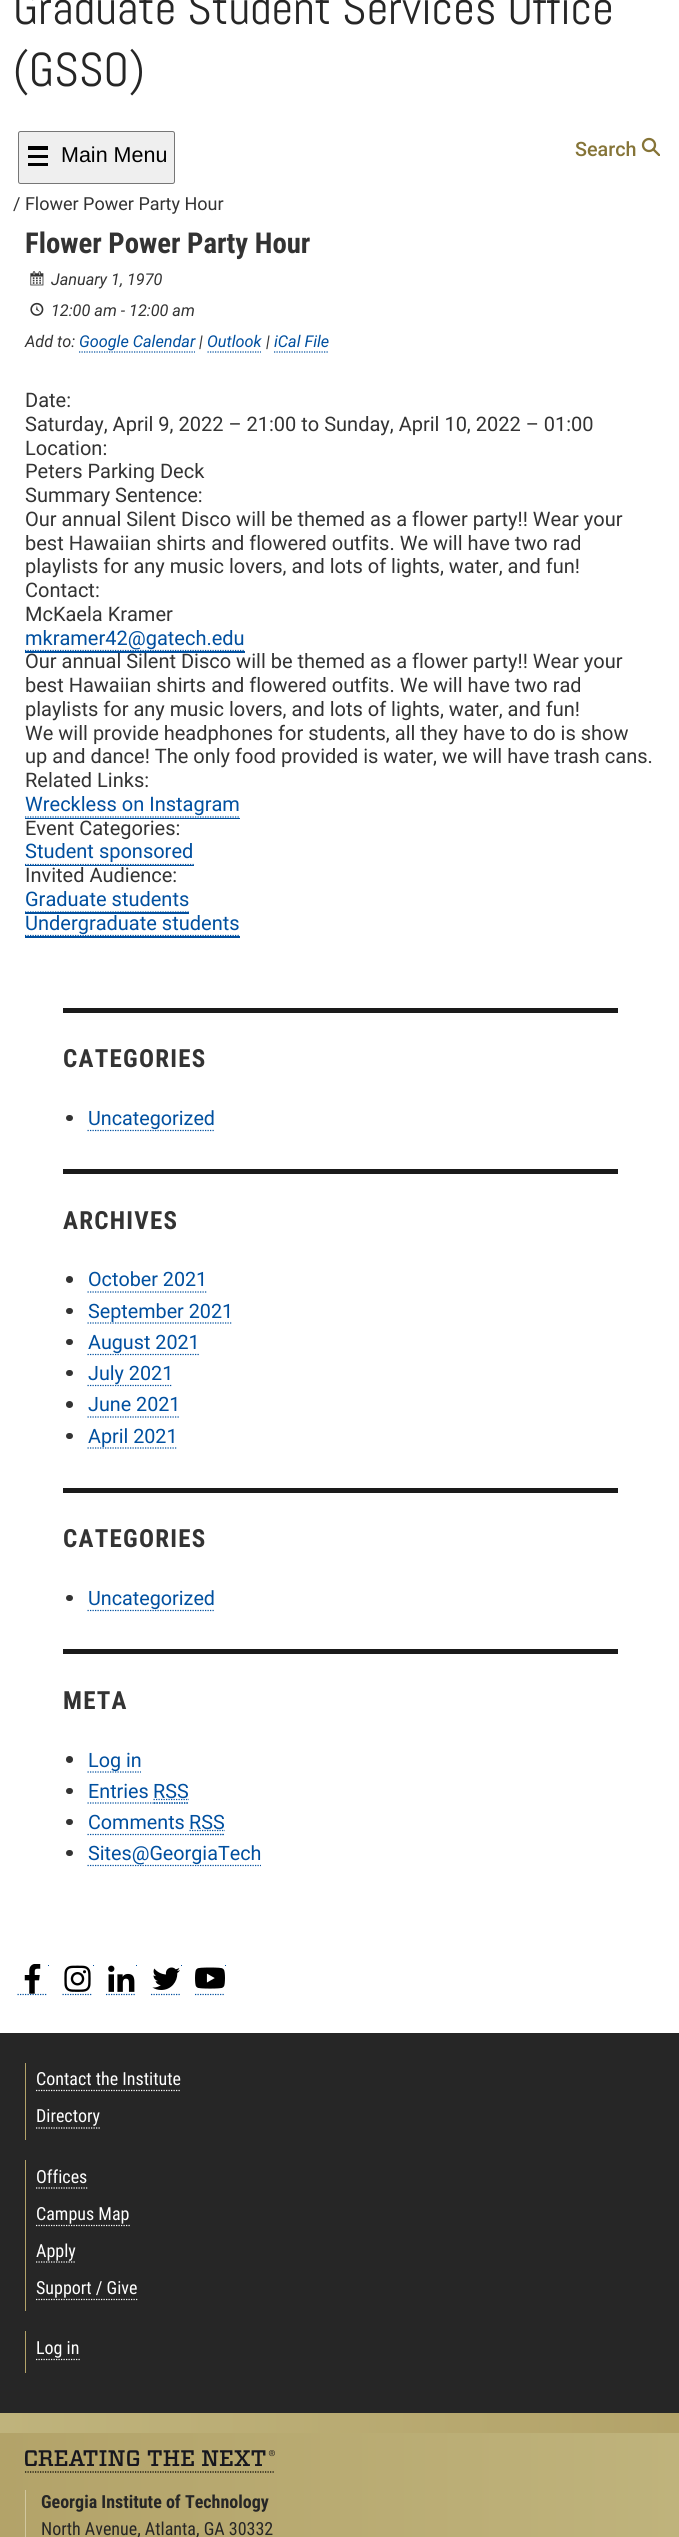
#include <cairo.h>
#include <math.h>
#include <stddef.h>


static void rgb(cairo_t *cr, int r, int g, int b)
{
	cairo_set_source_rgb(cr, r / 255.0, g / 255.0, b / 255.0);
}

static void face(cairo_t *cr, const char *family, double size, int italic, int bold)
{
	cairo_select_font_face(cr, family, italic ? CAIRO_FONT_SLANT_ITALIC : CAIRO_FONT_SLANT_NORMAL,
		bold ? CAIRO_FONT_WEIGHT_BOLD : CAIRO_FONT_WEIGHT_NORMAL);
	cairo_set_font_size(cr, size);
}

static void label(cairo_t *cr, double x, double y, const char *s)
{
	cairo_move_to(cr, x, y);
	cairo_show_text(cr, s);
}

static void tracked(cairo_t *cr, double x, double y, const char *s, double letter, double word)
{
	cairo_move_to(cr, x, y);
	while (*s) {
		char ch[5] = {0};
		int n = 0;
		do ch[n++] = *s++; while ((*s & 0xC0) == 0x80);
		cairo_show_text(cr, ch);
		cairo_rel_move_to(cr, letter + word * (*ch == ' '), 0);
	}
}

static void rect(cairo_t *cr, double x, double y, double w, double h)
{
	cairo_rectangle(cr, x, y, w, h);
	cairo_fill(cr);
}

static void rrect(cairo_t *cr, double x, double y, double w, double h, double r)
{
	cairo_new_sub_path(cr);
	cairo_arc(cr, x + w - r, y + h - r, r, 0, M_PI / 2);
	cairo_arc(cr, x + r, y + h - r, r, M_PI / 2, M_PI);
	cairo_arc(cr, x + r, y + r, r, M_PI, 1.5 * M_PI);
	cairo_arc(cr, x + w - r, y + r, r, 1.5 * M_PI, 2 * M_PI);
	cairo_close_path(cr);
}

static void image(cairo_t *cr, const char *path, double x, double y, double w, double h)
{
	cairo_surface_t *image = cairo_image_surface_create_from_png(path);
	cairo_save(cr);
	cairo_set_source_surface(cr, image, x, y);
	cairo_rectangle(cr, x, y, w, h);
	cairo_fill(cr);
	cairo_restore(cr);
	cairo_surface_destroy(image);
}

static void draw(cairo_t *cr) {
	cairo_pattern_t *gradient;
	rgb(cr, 255, 255, 255);
	cairo_paint(cr);
	face(cr, "Abel", 47.5, 0, 0);
	rgb(cr, 38, 38, 38);
	label(cr, 13, 24, "Graduate Student Services Office");
	label(cr, 13, 86, "(GSSO)");
	rgb(cr, 239, 239, 239);
	rrect(cr, 18.5, 131.5, 156, 52, 2);
	cairo_fill_preserve(cr);
	rgb(cr, 118, 118, 118);
	cairo_set_line_width(cr, 1);
	cairo_stroke(cr);
	rgb(cr, 0, 0, 0);
	rect(cr, 28, 146, 20, 4);
	rect(cr, 28, 155, 20, 3);
	rect(cr, 28, 163, 20, 3);
	face(cr, "Liberation Sans", 21.5, 0, 0);
	label(cr, 61, 162, "Main Menu");
	face(cr, "Roboto Medium", 19.75, 0, 0);
	rgb(cr, 133, 116, 55);
	label(cr, 575, 156, "Search");
	cairo_new_path(cr);
	cairo_arc(cr, 649, 145, 6, 0, 2 * M_PI);
	rgb(cr, 134, 116, 55);
	cairo_set_line_width(cr, 2.3);
	cairo_stroke(cr);
	cairo_save(cr);
	cairo_rectangle(cr, 641, 138, 19, 18);
	cairo_clip(cr);
	cairo_new_path(cr);
	cairo_move_to(cr, 652.5, 148.5);
	cairo_line_to(cr, 660, 156);
	cairo_stroke(cr);
	cairo_restore(cr);
	face(cr, "Roboto", 18, 0, 0);
	rgb(cr, 51, 51, 51);
	label(cr, 13, 210, "/ Flower Power Party Hour");
	face(cr, "Roboto Condensed", 28.75, 0, 1);
	label(cr, 25, 253, "Flower Power Party Hour");
	image(cr, "image0.png", 30, 271, 14, 15);
	face(cr, "Roboto", 16.25, 1, 0);
	label(cr, 51, 285, "January 1, 1970");
	image(cr, "image1.png", 30, 302, 14, 14);
	label(cr, 51, 316, "12:00 am - 12:00 am");
	label(cr, 25, 347, "Add to:");
	rgb(cr, 0, 79, 159);
	label(cr, 79, 347, "Google Calendar");
	cairo_new_path(cr);
	cairo_move_to(cr, 79, 352);
	cairo_line_to(cr, 195, 352);
	cairo_set_line_width(cr, 1.2);
	cairo_set_dash(cr, (double[]){1.25, 1.25}, 2, 0);
	cairo_stroke(cr);
	rgb(cr, 51, 51, 51);
	label(cr, 199, 347, "|");
	rgb(cr, 0, 79, 159);
	label(cr, 207, 347, "Outlook");
	cairo_new_path(cr);
	cairo_move_to(cr, 207.5, 352);
	cairo_line_to(cr, 261, 352);
	cairo_stroke(cr);
	rgb(cr, 51, 51, 51);
	label(cr, 266, 347, "|");
	rgb(cr, 0, 79, 159);
	label(cr, 274, 347, "iCal File");
	cairo_new_path(cr);
	cairo_move_to(cr, 274, 352);
	cairo_line_to(cr, 329, 352);
	cairo_stroke(cr);
	face(cr, "Roboto", 20, 0, 0);
	rgb(cr, 51, 51, 51);
	label(cr, 25, 407, "Date:");
	label(cr, 25, 431, "Saturday, April 9, 2022 – 21:00 to Sunday, April 10, 2022 – 01:00");
	label(cr, 25, 455, "Location:");
	label(cr, 25, 478, "Peters Parking Deck");
	label(cr, 25, 502, "Summary Sentence:");
	label(cr, 25, 526, "Our annual Silent Disco will be themed as a flower party!! Wear your");
	label(cr, 25, 550, "best Hawaiian shirts and flowered outfits. We will have two rad");
	label(cr, 25, 573, "playlists for any music lovers, and lots of lights, water, and fun!");
	label(cr, 25, 597, "Contact:");
	label(cr, 25, 621, "McKaela Kramer");
	rgb(cr, 0, 79, 159);
	rect(cr, 25, 651, 220, 2);
	cairo_new_path(cr);
	cairo_move_to(cr, 25, 650.5);
	cairo_line_to(cr, 245, 650.5);
	cairo_stroke(cr);
	label(cr, 25, 645, "mkramer42@gatech.edu");
	rgb(cr, 51, 51, 51);
	label(cr, 25, 668, "Our annual Silent Disco will be themed as a flower party!! Wear your");
	label(cr, 25, 692, "best Hawaiian shirts and flowered outfits. We will have two rad");
	label(cr, 25, 716, "playlists for any music lovers, and lots of lights, water, and fun!");
	label(cr, 25, 740, "We will provide headphones for students, all they have to do is show");
	label(cr, 25, 763, "up and dance! The only food provided is water, we will have trash cans.");
	label(cr, 25, 787, "Related Links:");
	rgb(cr, 0, 79, 159);
	label(cr, 25, 811, "Wreckless on Instagram");
	rect(cr, 25, 818, 215, 1);
	cairo_new_path(cr);
	cairo_move_to(cr, 25, 817);
	cairo_line_to(cr, 240, 817);
	cairo_stroke(cr);
	rgb(cr, 51, 51, 51);
	label(cr, 25, 835, "Event Categories:");
	rgb(cr, 0, 79, 159);
	label(cr, 25, 858, "Student sponsored");
	cairo_new_path(cr);
	cairo_move_to(cr, 25, 865);
	cairo_line_to(cr, 25, 866);
	cairo_line_to(cr, 194, 866);
	cairo_line_to(cr, 194, 841);
	cairo_line_to(cr, 194, 865);
	cairo_close_path(cr);
	cairo_fill(cr);
	cairo_new_path(cr);
	cairo_move_to(cr, 25, 864.5);
	cairo_line_to(cr, 194, 864.5);
	cairo_stroke(cr);
	rgb(cr, 51, 51, 51);
	label(cr, 25, 882, "Invited Audience:");
	rgb(cr, 0, 79, 159);
	label(cr, 25, 906, "Graduate students");
	cairo_new_path(cr);
	cairo_move_to(cr, 25, 912);
	cairo_line_to(cr, 25, 914);
	cairo_line_to(cr, 189, 914);
	cairo_line_to(cr, 189, 889);
	cairo_line_to(cr, 189, 912);
	cairo_close_path(cr);
	cairo_fill(cr);
	cairo_new_path(cr);
	cairo_move_to(cr, 25, 912);
	cairo_line_to(cr, 189, 912);
	cairo_stroke(cr);
	rect(cr, 25, 936, 215, 2);
	cairo_new_path(cr);
	cairo_move_to(cr, 25, 935.5);
	cairo_line_to(cr, 240, 935.5);
	cairo_stroke(cr);
	label(cr, 25, 930, "Undergraduate students");
	rgb(cr, 26, 26, 26);
	rect(cr, 63, 1008, 555, 5);
	face(cr, "Roboto Condensed", 25, 0, 1);
	rgb(cr, 51, 51, 51);
	tracked(cr, 63, 1067, "CATEGORIES", 1.25, 0);
	rrect(cr, 66, 1115, 7, 6, 3);
	cairo_fill(cr);
	cairo_new_path(cr);
	cairo_move_to(cr, 87.5, 1130.5);
	cairo_line_to(cr, 215, 1130.5);
	rgb(cr, 0, 79, 159);
	cairo_stroke(cr);
	face(cr, "Roboto", 19.75, 0, 0);
	label(cr, 88, 1125, "Uncategorized");
	rgb(cr, 26, 26, 26);
	rect(cr, 63, 1169, 555, 5);
	face(cr, "Roboto Condensed", 25, 0, 1);
	rgb(cr, 51, 51, 51);
	tracked(cr, 63, 1229, "ARCHIVES", 1.25, 0);
	cairo_new_path(cr);
	cairo_arc(cr, 69.5, 1279.5, 3.5, 0, 2 * M_PI);
	cairo_fill(cr);
	face(cr, "Roboto", 19.75, 0, 0);
	rgb(cr, 0, 79, 159);
	label(cr, 88, 1286, "October 2021");
	cairo_new_path(cr);
	cairo_move_to(cr, 87.5, 1292);
	cairo_line_to(cr, 207.5, 1292);
	cairo_stroke(cr);
	rgb(cr, 51, 51, 51);
	rrect(cr, 66, 1308, 7, 6, 3);
	cairo_fill(cr);
	rgb(cr, 0, 79, 159);
	label(cr, 88, 1318, "September 2021");
	cairo_new_path(cr);
	cairo_move_to(cr, 87.5, 1323);
	cairo_line_to(cr, 232.5, 1323);
	cairo_stroke(cr);
	rgb(cr, 51, 51, 51);
	rrect(cr, 66, 1339, 7, 6, 3);
	cairo_fill(cr);
	cairo_new_path(cr);
	cairo_move_to(cr, 87.5, 1354.5);
	cairo_line_to(cr, 200, 1354.5);
	rgb(cr, 0, 79, 159);
	cairo_stroke(cr);
	label(cr, 88, 1349, "August 2021");
	rgb(cr, 51, 51, 51);
	rrect(cr, 66, 1370, 7, 6, 3);
	cairo_fill(cr);
	cairo_new_path(cr);
	cairo_move_to(cr, 87.5, 1385.5);
	cairo_line_to(cr, 172.5, 1385.5);
	rgb(cr, 0, 79, 159);
	cairo_stroke(cr);
	label(cr, 88, 1380, "July 2021");
	rgb(cr, 51, 51, 51);
	cairo_new_path(cr);
	cairo_arc(cr, 69.5, 1404.5, 3.5, 0, 2 * M_PI);
	cairo_fill(cr);
	rgb(cr, 0, 79, 159);
	label(cr, 88, 1411, "June 2021");
	cairo_new_path(cr);
	cairo_move_to(cr, 87.5, 1417);
	cairo_line_to(cr, 180, 1417);
	cairo_stroke(cr);
	rgb(cr, 51, 51, 51);
	rrect(cr, 66, 1433, 7, 6, 3);
	cairo_fill(cr);
	rgb(cr, 0, 79, 159);
	label(cr, 88, 1443, "April 2021");
	cairo_new_path(cr);
	cairo_move_to(cr, 87.5, 1448);
	cairo_line_to(cr, 177.5, 1448);
	cairo_stroke(cr);
	rgb(cr, 26, 26, 26);
	rect(cr, 63, 1488, 555, 5);
	face(cr, "Roboto Condensed", 25, 0, 1);
	rgb(cr, 51, 51, 51);
	tracked(cr, 63, 1547, "CATEGORIES", 1.25, 0);
	rrect(cr, 66, 1595, 7, 6, 3);
	cairo_fill(cr);
	cairo_new_path(cr);
	cairo_move_to(cr, 87.5, 1610.5);
	cairo_line_to(cr, 215, 1610.5);
	rgb(cr, 0, 79, 159);
	cairo_stroke(cr);
	face(cr, "Roboto", 19.75, 0, 0);
	label(cr, 88, 1605, "Uncategorized");
	rgb(cr, 26, 26, 26);
	rect(cr, 63, 1649, 555, 5);
	face(cr, "Roboto Condensed", 25, 0, 1);
	rgb(cr, 51, 51, 51);
	tracked(cr, 63, 1709, "META", 1.25, 0);
	cairo_new_path(cr);
	cairo_arc(cr, 69.5, 1759.5, 3.5, 0, 2 * M_PI);
	cairo_fill(cr);
	cairo_new_path(cr);
	cairo_move_to(cr, 87.5, 1772);
	cairo_line_to(cr, 141, 1772);
	rgb(cr, 0, 79, 159);
	cairo_stroke(cr);
	face(cr, "Roboto", 19.75, 0, 0);
	label(cr, 88, 1767, "Log in");
	rgb(cr, 51, 51, 51);
	rrect(cr, 66, 1788, 7, 6, 3);
	cairo_fill(cr);
	rgb(cr, 0, 79, 159);
	label(cr, 88, 1798, "Entries");
	cairo_new_path(cr);
	cairo_move_to(cr, 87.5, 1803);
	cairo_line_to(cr, 154, 1803);
	cairo_stroke(cr);
	cairo_new_path(cr);
	cairo_move_to(cr, 154, 1803);
	cairo_line_to(cr, 189, 1803);
	cairo_stroke(cr);
	cairo_new_path(cr);
	cairo_move_to(cr, 154, 1803);
	cairo_line_to(cr, 189, 1803);
	cairo_move_to(cr, 153.5, 1799.5);
	cairo_line_to(cr, 189, 1799.5);
	cairo_stroke(cr);
	label(cr, 153, 1798, "RSS");
	rgb(cr, 51, 51, 51);
	rrect(cr, 66, 1819, 7, 6, 3);
	cairo_fill(cr);
	rgb(cr, 0, 79, 159);
	label(cr, 88, 1829, "Comments");
	cairo_new_path(cr);
	cairo_move_to(cr, 87.5, 1834.5);
	cairo_line_to(cr, 190, 1834.5);
	cairo_stroke(cr);
	cairo_new_path(cr);
	cairo_move_to(cr, 190, 1834.5);
	cairo_line_to(cr, 225, 1834.5);
	cairo_stroke(cr);
	cairo_new_path(cr);
	cairo_move_to(cr, 190, 1834.5);
	cairo_line_to(cr, 225, 1834.5);
	cairo_move_to(cr, 189.5, 1830.5);
	cairo_line_to(cr, 225, 1830.5);
	cairo_stroke(cr);
	label(cr, 189, 1829, "RSS");
	rgb(cr, 51, 51, 51);
	rrect(cr, 66, 1850, 7, 6, 3);
	cairo_fill(cr);
	cairo_new_path(cr);
	cairo_move_to(cr, 87.5, 1865.5);
	cairo_line_to(cr, 261, 1865.5);
	rgb(cr, 0, 79, 159);
	cairo_stroke(cr);
	label(cr, 88, 1860, "Sites@GeorgiaTech");
	cairo_new_path(cr);
	cairo_move_to(cr, 17.5, 1994.5);
	cairo_line_to(cr, 47.5, 1994.5);
	cairo_stroke(cr);
	rect(cr, 48, 1965, 1, 1);
	image(cr, "image2.png", 24, 1964, 17, 30);
	cairo_new_path(cr);
	cairo_move_to(cr, 62.5, 1994.5);
	cairo_line_to(cr, 92.5, 1994.5);
	cairo_stroke(cr);
	rect(cr, 93, 1965, 1, 1);
	image(cr, "image3.png", 64, 1965, 27, 27);
	cairo_new_path(cr);
	cairo_move_to(cr, 106, 1994.5);
	cairo_line_to(cr, 136, 1994.5);
	cairo_stroke(cr);
	rect(cr, 136, 1965, 1, 1);
	image(cr, "image4.png", 108, 1965, 27, 27);
	cairo_new_path(cr);
	cairo_move_to(cr, 151, 1994.5);
	cairo_line_to(cr, 181, 1994.5);
	cairo_stroke(cr);
	rect(cr, 181, 1965, 1, 1);
	image(cr, "image5.png", 152, 1967, 28, 23);
	cairo_new_path(cr);
	cairo_move_to(cr, 195, 1994.5);
	cairo_line_to(cr, 225, 1994.5);
	cairo_stroke(cr);
	rect(cr, 225, 1965, 1, 1);
	image(cr, "image6.png", 195, 1967, 30, 22);
	rgb(cr, 38, 38, 38);
	rect(cr, 0, 2033, 679, 380);
	rgb(cr, 179, 163, 105);
	rect(cr, 25, 2063, 1, 77);
	face(cr, "Roboto Condensed", 18, 0, 0);
	rgb(cr, 255, 255, 255);
	label(cr, 36, 2085, "Contact the Institute");
	cairo_new_path(cr);
	cairo_move_to(cr, 36, 2090.5);
	cairo_line_to(cr, 181, 2090.5);
	cairo_stroke(cr);
	label(cr, 36, 2122, "Directory");
	cairo_new_path(cr);
	cairo_move_to(cr, 36, 2128);
	cairo_line_to(cr, 100, 2128);
	cairo_stroke(cr);
	rgb(cr, 179, 163, 105);
	rect(cr, 25, 2160, 1, 151);
	rgb(cr, 255, 255, 255);
	label(cr, 36, 2183, "Offices");
	cairo_new_path(cr);
	cairo_move_to(cr, 36, 2188);
	cairo_line_to(cr, 87.5, 2188);
	cairo_stroke(cr);
	label(cr, 36, 2220, "Campus Map");
	cairo_new_path(cr);
	cairo_move_to(cr, 36, 2225.5);
	cairo_line_to(cr, 130, 2225.5);
	cairo_stroke(cr);
	label(cr, 36, 2257, "Apply");
	cairo_new_path(cr);
	cairo_move_to(cr, 36, 2262);
	cairo_line_to(cr, 76, 2262);
	cairo_stroke(cr);
	label(cr, 36, 2294, "Support / Give");
	cairo_new_path(cr);
	cairo_move_to(cr, 36, 2299.5);
	cairo_line_to(cr, 137.5, 2299.5);
	cairo_stroke(cr);
	rgb(cr, 179, 163, 105);
	rect(cr, 25, 2331, 1, 42);
	rgb(cr, 255, 255, 255);
	label(cr, 36, 2354, "Log in");
	cairo_new_path(cr);
	cairo_move_to(cr, 36, 2359.5);
	cairo_line_to(cr, 80, 2359.5);
	cairo_stroke(cr);
	gradient = cairo_pattern_create_linear(0, 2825, 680, 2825);
	cairo_pattern_add_color_stop_rgba(gradient, 0, 0.702, 0.639, 0.412, 1);
	cairo_pattern_add_color_stop_rgba(gradient, 1, 0.749, 0.702, 0.486, 1);
	cairo_set_source(cr, gradient);
	cairo_pattern_destroy(gradient);
	rect(cr, 0, 2433, 679, 104);
	gradient = cairo_pattern_create_linear(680, 2423, 0, 2423);
	cairo_pattern_add_color_stop_rgba(gradient, 0, 0.702, 0.639, 0.412, 1);
	cairo_pattern_add_color_stop_rgba(gradient, 1, 0.749, 0.702, 0.486, 1);
	cairo_set_source(cr, gradient);
	cairo_pattern_destroy(gradient);
	rect(cr, 0, 2413, 679, 20);
	image(cr, "image7.png", 25, 2450, 250, 16);
	cairo_new_path(cr);
	cairo_move_to(cr, 25, 2472);
	cairo_line_to(cr, 275, 2472);
	rgb(cr, 0, 0, 0);
	cairo_stroke(cr);
	rgb(cr, 210, 199, 159);
	rect(cr, 25, 2490, 1, 47);
	face(cr, "Roboto Condensed", 18, 0, 1);
	rgb(cr, 38, 38, 38);
	label(cr, 41, 2508, "Georgia Institute of Technology");
	face(cr, "Roboto Condensed", 18, 0, 0);
	label(cr, 41, 2535, "North Avenue, Atlanta, GA 30332");
}

int main(void) {
	cairo_surface_t *surface = cairo_image_surface_create(CAIRO_FORMAT_RGB24, 679, 2537);
	cairo_t *cr = cairo_create(surface);
	cairo_font_options_t *options = cairo_font_options_create();
	cairo_font_options_set_hint_metrics(options, CAIRO_HINT_METRICS_OFF);
	cairo_font_options_set_hint_style(options, CAIRO_HINT_STYLE_NONE);
	cairo_set_font_options(cr, options);
	cairo_set_miter_limit(cr, 4);
	draw(cr);
	cairo_surface_write_to_png(surface, "render.png");
	cairo_font_options_destroy(options);
	cairo_destroy(cr);
	cairo_surface_destroy(surface);
	return 0;
}
